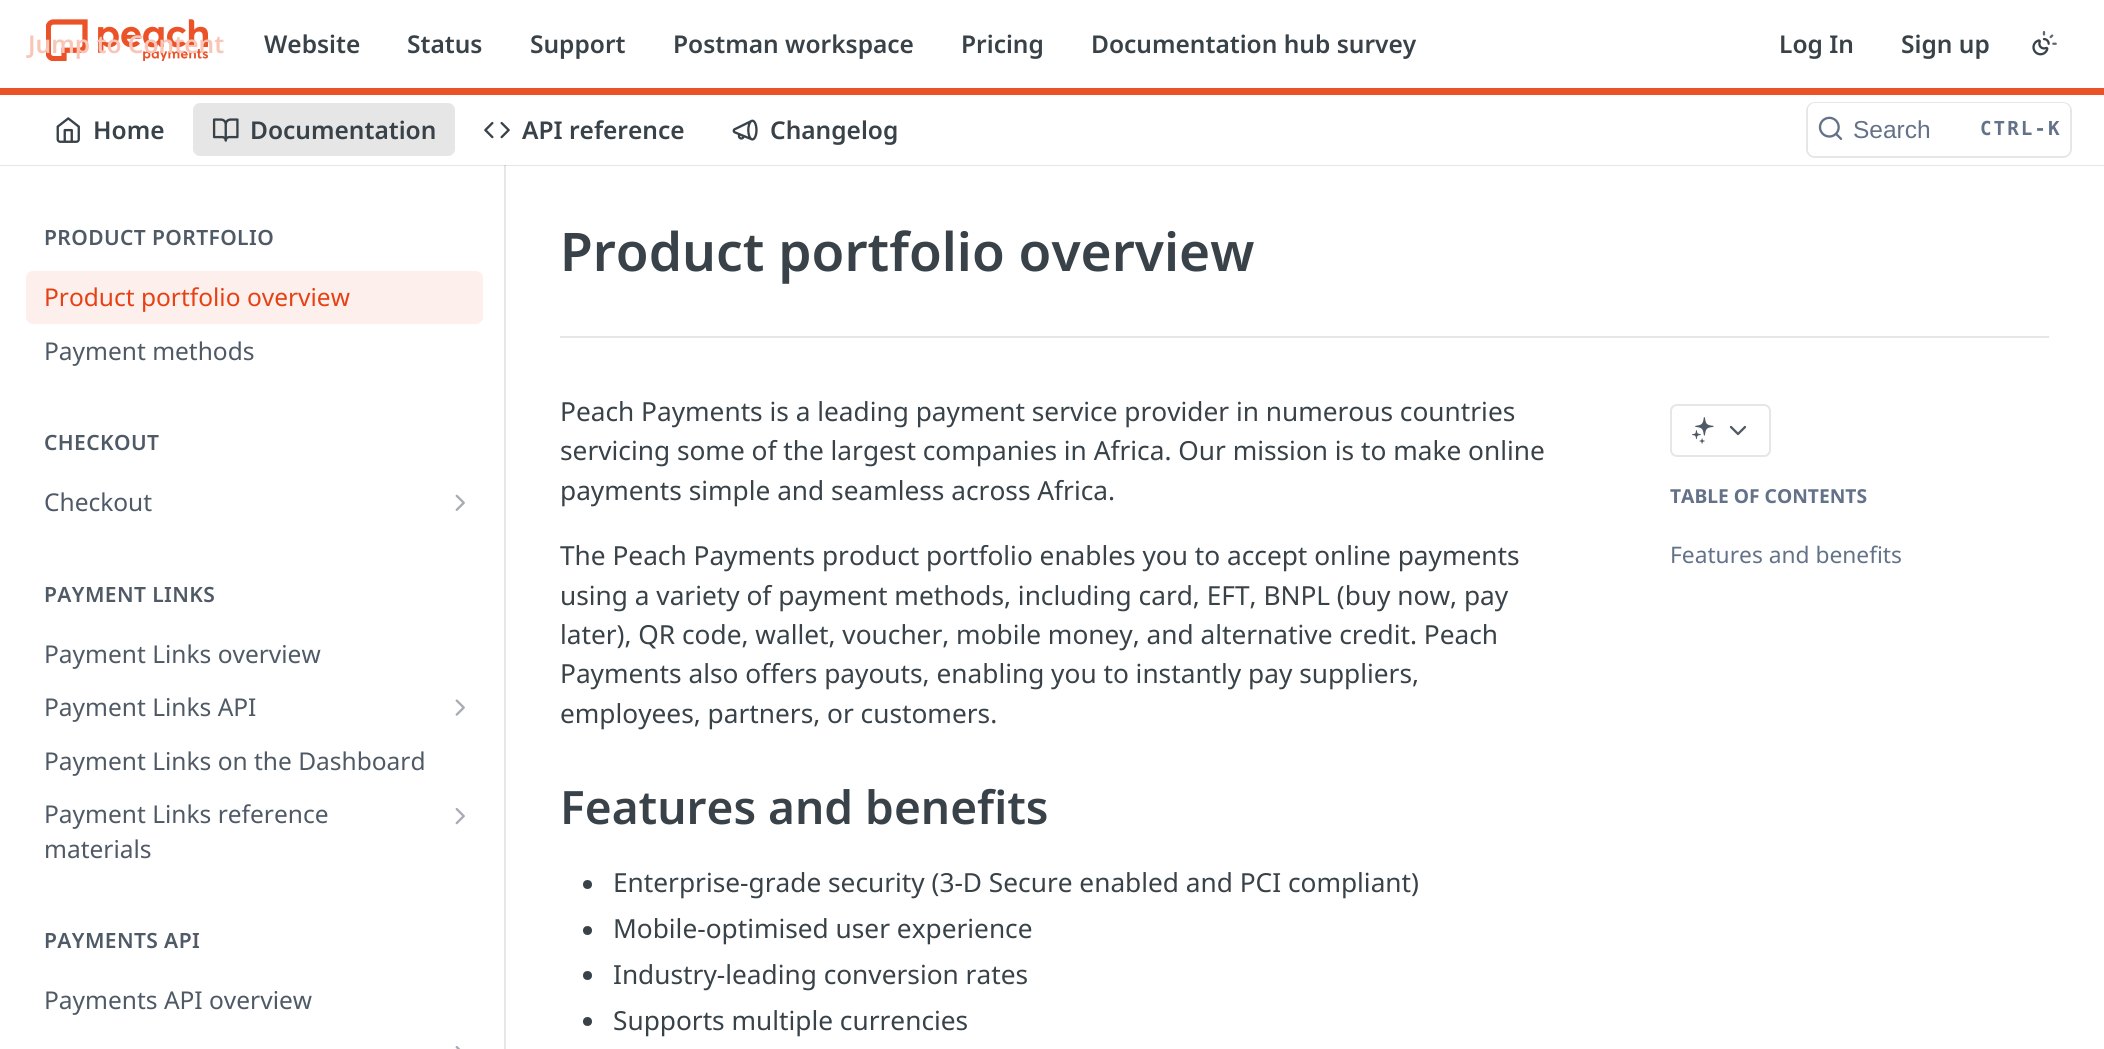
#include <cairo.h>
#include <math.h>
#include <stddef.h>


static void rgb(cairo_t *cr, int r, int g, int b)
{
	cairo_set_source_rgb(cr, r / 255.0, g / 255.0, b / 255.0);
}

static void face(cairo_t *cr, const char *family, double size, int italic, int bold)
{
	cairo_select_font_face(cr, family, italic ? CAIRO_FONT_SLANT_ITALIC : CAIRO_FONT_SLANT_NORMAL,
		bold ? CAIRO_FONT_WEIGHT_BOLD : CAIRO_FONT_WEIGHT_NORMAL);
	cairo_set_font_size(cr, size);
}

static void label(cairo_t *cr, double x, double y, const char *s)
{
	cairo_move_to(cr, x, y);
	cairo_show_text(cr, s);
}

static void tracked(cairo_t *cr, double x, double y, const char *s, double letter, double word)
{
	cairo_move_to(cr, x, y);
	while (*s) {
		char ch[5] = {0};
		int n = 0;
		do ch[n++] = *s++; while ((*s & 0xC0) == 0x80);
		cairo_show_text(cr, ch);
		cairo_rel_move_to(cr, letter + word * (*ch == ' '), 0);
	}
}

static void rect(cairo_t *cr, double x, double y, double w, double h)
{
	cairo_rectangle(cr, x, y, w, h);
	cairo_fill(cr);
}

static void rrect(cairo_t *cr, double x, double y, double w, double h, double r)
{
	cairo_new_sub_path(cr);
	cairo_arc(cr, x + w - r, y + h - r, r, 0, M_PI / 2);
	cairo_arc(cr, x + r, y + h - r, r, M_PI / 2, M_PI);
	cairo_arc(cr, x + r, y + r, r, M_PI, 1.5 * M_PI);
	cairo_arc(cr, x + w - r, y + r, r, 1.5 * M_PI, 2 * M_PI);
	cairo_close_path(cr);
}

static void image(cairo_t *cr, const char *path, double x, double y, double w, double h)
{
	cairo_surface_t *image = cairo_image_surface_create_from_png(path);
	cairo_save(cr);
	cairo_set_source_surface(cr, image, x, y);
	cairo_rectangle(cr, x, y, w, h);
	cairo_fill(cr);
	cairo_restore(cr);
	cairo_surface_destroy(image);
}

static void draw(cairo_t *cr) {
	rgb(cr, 255, 255, 255);
	cairo_paint(cr);
	rgb(cr, 230, 230, 230);
	cairo_new_path(cr);
	cairo_move_to(cr, 2, 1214);
	cairo_line_to(cr, 2, 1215);
	cairo_line_to(cr, 506, 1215);
	cairo_line_to(cr, 506, 165);
	cairo_line_to(cr, 504, 165);
	cairo_line_to(cr, 504, 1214);
	cairo_close_path(cr);
	cairo_fill(cr);
	cairo_set_source_rgba(cr, 0, 0, 0, 0.1);
	rect(cr, 0, 165, 2104, 1);
	rgb(cr, 236, 82, 40);
	rect(cr, 0, 88, 2104, 7);
	image(cr, "image0.png", 46, 19, 162, 42);
	face(cr, "Noto Sans SemiBold", 24.5, 0, 0);
	rgb(cr, 249, 197, 183);
	label(cr, 28, 53, "Jump to Content");
	rgb(cr, 56, 66, 72);
	label(cr, 264, 53, "Website");
	label(cr, 407, 53, "Status");
	label(cr, 530, 53, "Support");
	label(cr, 673, 53, "Postman workspace");
	label(cr, 961, 53, "Pricing");
	label(cr, 1091, 53, "Documentation hub survey");
	label(cr, 1779, 53, "Log In");
	label(cr, 1901, 53, "Sign up");
	image(cr, "image1.png", 2032, 31, 25, 25);
	image(cr, "image2.png", 56, 117, 24, 26);
	label(cr, 93, 139, "Home");
	rgb(cr, 230, 230, 230);
	rrect(cr, 193, 103, 262, 53, 7);
	cairo_fill(cr);
	image(cr, "image3.png", 212, 118, 27, 24);
	rgb(cr, 56, 66, 72);
	label(cr, 250, 139, "Documentation");
	image(cr, "image4.png", 484, 121, 26, 18);
	label(cr, 522, 139, "API reference");
	image(cr, "image5.png", 732, 119, 26, 22);
	label(cr, 770, 139, "Changelog");
	rrect(cr, 1807, 103, 264, 54, 8);
	rgb(cr, 230, 230, 230);
	cairo_stroke(cr);
	rgb(cr, 255, 255, 255);
	rrect(cr, 1808, 103, 262, 53, 7);
	cairo_fill(cr);
	image(cr, "image6.png", 1818, 116, 25, 24);
	face(cr, "Liberation Sans", 24.5, 0, 0);
	rgb(cr, 99, 114, 136);
	label(cr, 1853, 138, "Search");
	face(cr, "DejaVu Sans Mono", 19.25, 0, 1);
	tracked(cr, 1980, 135, "CTRL-K", 2, 0);
	face(cr, "Noto Sans SemiBold", 21, 0, 0);
	rgb(cr, 79, 90, 102);
	tracked(cr, 44, 245, "PRODUCT PORTFOLIO", 0.4, 0);
	rgb(cr, 253, 239, 236);
	rrect(cr, 26, 271, 457, 53, 7);
	cairo_fill(cr);
	face(cr, "Noto Sans", 24.5, 0, 0);
	rgb(cr, 230, 65, 20);
	label(cr, 44, 306, "Product portfolio overview");
	rgb(cr, 79, 90, 102);
	label(cr, 44, 360, "Payment methods");
	face(cr, "Noto Sans SemiBold", 21, 0, 0);
	tracked(cr, 44, 450, "CHECKOUT", 0.4, 0);
	face(cr, "Noto Sans", 24.5, 0, 0);
	label(cr, 44, 511, "Checkout");
	image(cr, "image7.png", 455, 494, 10, 17);
	face(cr, "Noto Sans SemiBold", 21, 0, 0);
	tracked(cr, 44, 602, "PAYMENT LINKS", 0.4, 0);
	face(cr, "Noto Sans", 24.5, 0, 0);
	label(cr, 44, 663, "Payment Links overview");
	label(cr, 44, 716, "Payment Links API");
	image(cr, "image8.png", 455, 699, 10, 17);
	label(cr, 44, 770, "Payment Links on the Dashboard");
	label(cr, 44, 823, "Payment Links reference");
	label(cr, 44, 858, "materials");
	image(cr, "image9.png", 455, 808, 10, 17);
	face(cr, "Noto Sans SemiBold", 21, 0, 0);
	tracked(cr, 44, 948, "PAYMENTS API", 0.4, 0);
	face(cr, "Noto Sans", 24.5, 0, 0);
	label(cr, 44, 1009, "Payments API overview");
	image(cr, "image10.png", 455, 1046, 6, 3);
	rgb(cr, 230, 230, 230);
	rect(cr, 560, 336, 1489, 2);
	face(cr, "Noto Sans SemiBold", 53.25, 0, 0);
	rgb(cr, 56, 66, 72);
	label(cr, 560, 271, "Product portfolio overview");
	face(cr, "Noto Sans", 26.25, 0, 0);
	label(cr, 560, 421, "Peach Payments is a leading payment service provider in numerous countries");
	label(cr, 560, 460, "servicing some of the largest companies in Africa. Our mission is to make online");
	label(cr, 560, 500, "payments simple and seamless across Africa.");
	label(cr, 560, 565, "The Peach Payments product portfolio enables you to accept online payments");
	label(cr, 560, 605, "using a variety of payment methods, including card, EFT, BNPL (buy now, pay");
	label(cr, 560, 644, "later), QR code, wallet, voucher, mobile money, and alternative credit. Peach");
	label(cr, 560, 683, "Payments also offers payouts, enabling you to instantly pay suppliers,");
	label(cr, 560, 723, "employees, partners, or customers.");
	face(cr, "Noto Sans SemiBold", 46, 0, 0);
	label(cr, 560, 824, "Features and benefits");
	cairo_new_path(cr);
	cairo_arc(cr, 587.5, 884.5, 4.5, 0, 2 * M_PI);
	cairo_fill(cr);
	face(cr, "Noto Sans", 26.25, 0, 0);
	label(cr, 613, 892, "Enterprise-grade security (3-D Secure enabled and PCI compliant)");
	cairo_new_path(cr);
	cairo_arc(cr, 587.5, 930.5, 4.5, 0, 2 * M_PI);
	cairo_fill(cr);
	label(cr, 613, 938, "Mobile-optimised user experience");
	cairo_new_path(cr);
	cairo_arc(cr, 587.5, 975.5, 4.5, 0, 2 * M_PI);
	cairo_fill(cr);
	label(cr, 613, 984, "Industry-leading conversion rates");
	cairo_new_path(cr);
	cairo_arc(cr, 587.5, 1021.5, 4.5, 0, 2 * M_PI);
	cairo_fill(cr);
	label(cr, 613, 1030, "Supports multiple currencies");
	rrect(cr, 1671, 405, 99, 51, 6);
	rgb(cr, 230, 230, 230);
	cairo_stroke(cr);
	image(cr, "image11.png", 1692, 417, 22, 27);
	cairo_new_path(cr);
	cairo_move_to(cr, 1731, 427);
	cairo_line_to(cr, 1738, 434);
	cairo_line_to(cr, 1745, 427);
	rgb(cr, 79, 90, 102);
	cairo_set_line_width(cr, 2.3);
	cairo_set_line_cap(cr, CAIRO_LINE_CAP_ROUND);
	cairo_set_line_join(cr, CAIRO_LINE_JOIN_ROUND);
	cairo_stroke(cr);
	face(cr, "Noto Sans", 19.25, 0, 1);
	rgb(cr, 99, 114, 136);
	label(cr, 1670, 503, "TABLE OF CONTENTS");
	face(cr, "Noto Sans", 22.75, 0, 0);
	label(cr, 1670, 563, "Features and benefits");
}

int main(void) {
	cairo_surface_t *surface = cairo_image_surface_create(CAIRO_FORMAT_RGB24, 2104, 1049);
	cairo_t *cr = cairo_create(surface);
	cairo_font_options_t *options = cairo_font_options_create();
	cairo_font_options_set_hint_metrics(options, CAIRO_HINT_METRICS_OFF);
	cairo_font_options_set_hint_style(options, CAIRO_HINT_STYLE_NONE);
	cairo_set_font_options(cr, options);
	cairo_set_miter_limit(cr, 4);
	draw(cr);
	cairo_surface_write_to_png(surface, "render.png");
	cairo_font_options_destroy(options);
	cairo_destroy(cr);
	cairo_surface_destroy(surface);
	return 0;
}
